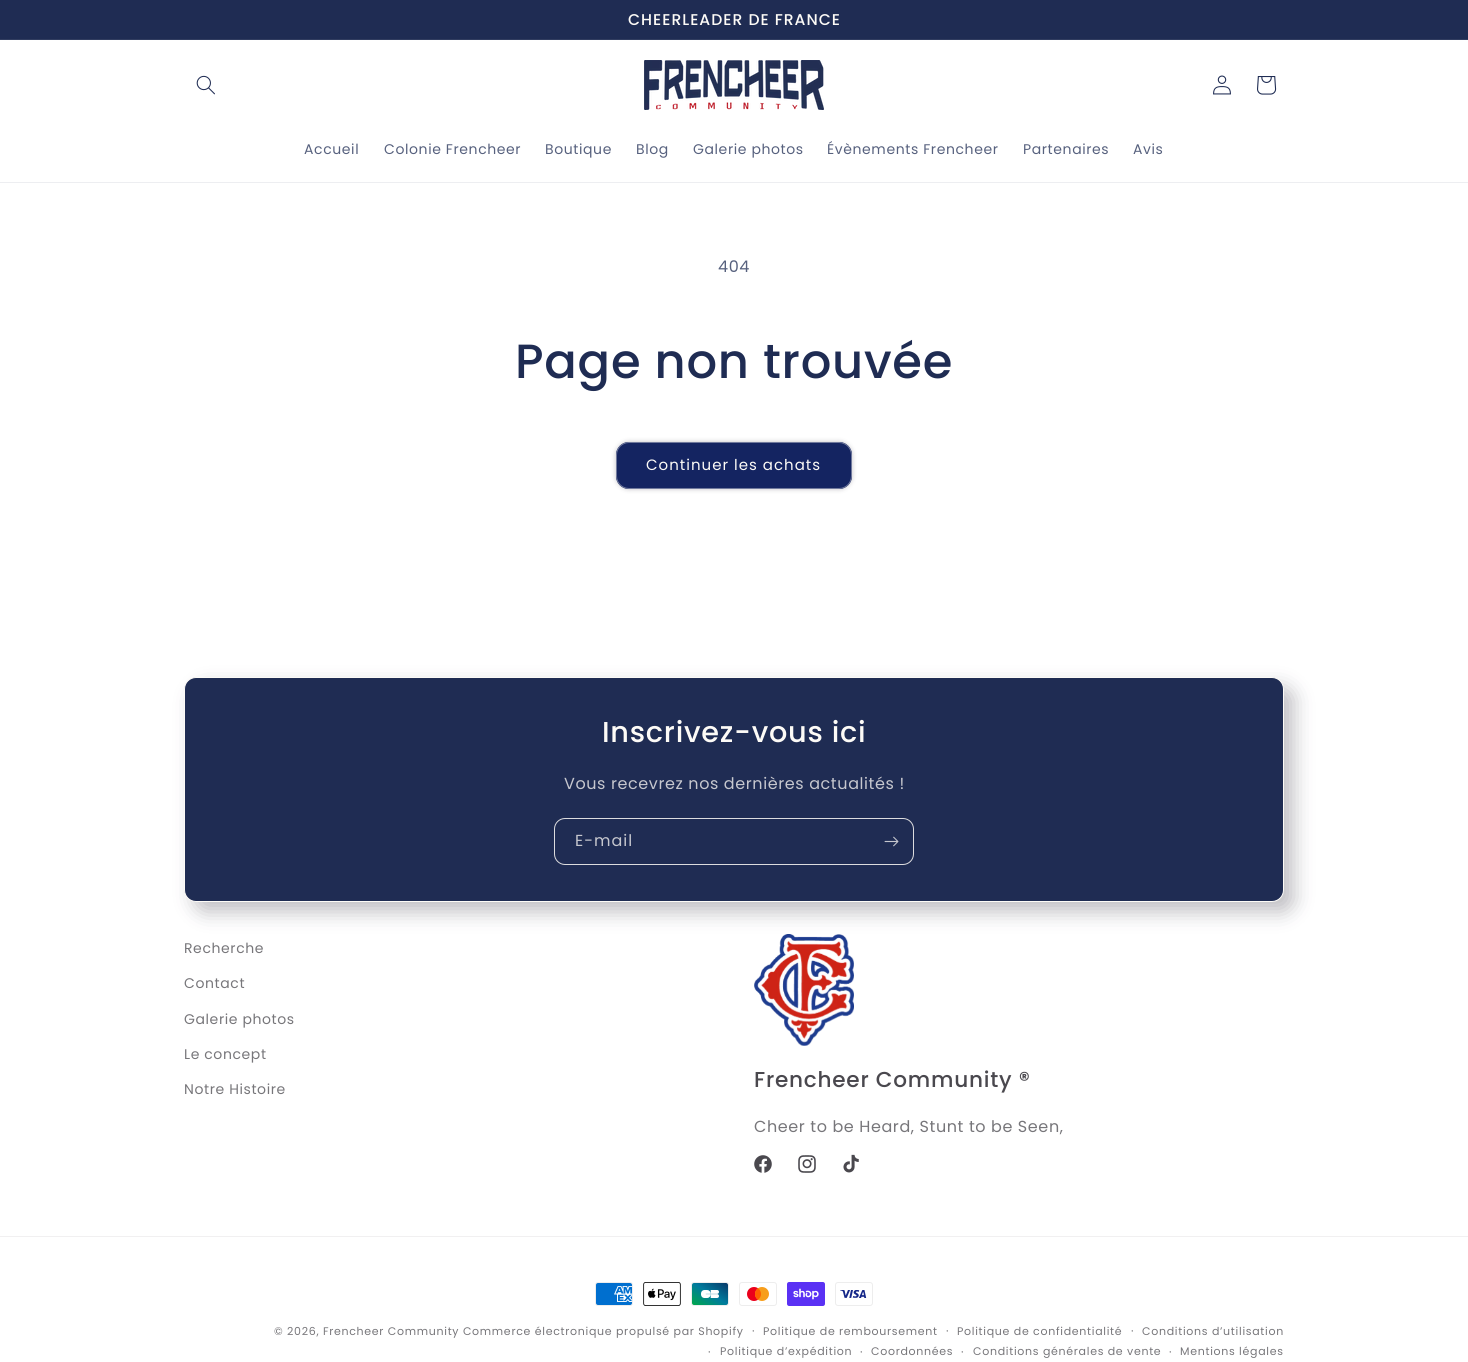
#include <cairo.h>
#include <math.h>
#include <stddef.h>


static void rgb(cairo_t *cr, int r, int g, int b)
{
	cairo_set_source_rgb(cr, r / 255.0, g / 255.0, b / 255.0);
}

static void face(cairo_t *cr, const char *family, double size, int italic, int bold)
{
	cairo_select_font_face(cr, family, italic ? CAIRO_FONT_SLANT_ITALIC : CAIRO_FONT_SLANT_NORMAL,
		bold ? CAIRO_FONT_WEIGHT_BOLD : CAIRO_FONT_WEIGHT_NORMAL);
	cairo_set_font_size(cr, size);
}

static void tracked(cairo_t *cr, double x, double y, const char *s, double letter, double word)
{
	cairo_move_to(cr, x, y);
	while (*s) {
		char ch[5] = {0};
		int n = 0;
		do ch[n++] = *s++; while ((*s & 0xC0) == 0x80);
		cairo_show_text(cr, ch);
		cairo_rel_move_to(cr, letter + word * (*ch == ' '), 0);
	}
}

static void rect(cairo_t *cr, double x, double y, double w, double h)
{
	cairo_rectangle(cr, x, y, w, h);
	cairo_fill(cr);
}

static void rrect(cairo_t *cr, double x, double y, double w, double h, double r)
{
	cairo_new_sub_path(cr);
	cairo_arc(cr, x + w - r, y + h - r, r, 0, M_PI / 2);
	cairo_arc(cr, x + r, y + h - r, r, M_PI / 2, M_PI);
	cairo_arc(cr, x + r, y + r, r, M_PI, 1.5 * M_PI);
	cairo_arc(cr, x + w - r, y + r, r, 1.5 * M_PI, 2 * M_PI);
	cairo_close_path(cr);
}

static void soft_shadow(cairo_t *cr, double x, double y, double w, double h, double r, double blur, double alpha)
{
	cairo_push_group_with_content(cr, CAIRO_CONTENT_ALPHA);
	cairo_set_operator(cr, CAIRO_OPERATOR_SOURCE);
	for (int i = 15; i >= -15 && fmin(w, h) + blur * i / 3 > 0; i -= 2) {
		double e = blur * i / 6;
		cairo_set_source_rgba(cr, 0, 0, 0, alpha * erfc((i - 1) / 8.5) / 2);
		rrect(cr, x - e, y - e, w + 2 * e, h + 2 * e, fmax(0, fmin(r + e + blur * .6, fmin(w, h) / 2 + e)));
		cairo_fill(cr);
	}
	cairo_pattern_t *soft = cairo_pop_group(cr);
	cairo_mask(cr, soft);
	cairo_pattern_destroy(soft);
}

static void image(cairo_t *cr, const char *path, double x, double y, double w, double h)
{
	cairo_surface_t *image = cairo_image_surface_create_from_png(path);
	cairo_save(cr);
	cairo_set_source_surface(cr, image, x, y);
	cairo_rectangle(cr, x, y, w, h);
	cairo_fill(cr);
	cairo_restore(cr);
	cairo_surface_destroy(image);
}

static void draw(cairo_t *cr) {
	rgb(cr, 255, 255, 255);
	cairo_paint(cr);
	rgb(cr, 31, 44, 83);
	rect(cr, 0, 0, 1468, 39);
	rgb(cr, 49, 61, 96);
	rect(cr, 0, 39, 1468, 1);
	face(cr, "Poppins Medium", 15.6, 0, 0);
	rgb(cr, 253, 251, 247);
	tracked(cr, 628, 25, "CHEERLEADER DE FRANCE", 1, 0);
	rgb(cr, 237, 238, 241);
	rect(cr, 0, 182, 1468, 1);
	image(cr, "image0.png", 196, 75, 19, 20);
	image(cr, "image1.png", 644, 60, 180, 50);
	image(cr, "image2.png", 1213, 75, 18, 20);
	image(cr, "image3.png", 1257, 76, 20, 19);
	face(cr, "Poppins", 14, 0, 0);
	rgb(cr, 87, 97, 126);
	tracked(cr, 304, 154, "Accueil", 0.6, 0);
	tracked(cr, 384, 154, "Colonie Frencheer", 0.6, 0);
	tracked(cr, 545, 154, "Boutique", 0.6, 0);
	tracked(cr, 636, 154, "Blog", 0.6, 0);
	tracked(cr, 693, 154, "Galerie photos", 0.6, 0);
	tracked(cr, 827, 154, "Évènements Frencheer", 0.6, 0);
	tracked(cr, 1023, 154, "Partenaires", 0.6, 0);
	tracked(cr, 1133, 154, "Avis", 0.6, 0);
	face(cr, "Poppins", 16, 0, 0);
	tracked(cr, 718, 272, "404", 0.6, 0);
	face(cr, "Poppins Medium", 48, 0, 0);
	rgb(cr, 31, 44, 83);
	tracked(cr, 515, 378, "Page non trouvée", 0.75, 0);
	rgb(cr, 46, 42, 57);
	soft_shadow(cr, 616, 442, 236, 47, 13, 2.5, 0.3);
	rgb(cr, 20, 36, 97);
	rrect(cr, 616, 442, 236, 47, 13);
	cairo_fill(cr);
	rrect(cr, 616.5, 442.5, 235, 46, 12.5);
	cairo_set_line_width(cr, 1);
	cairo_stroke(cr);
	rrect(cr, 616.5, 442.5, 235, 46, 12.5);
	cairo_set_source_rgba(cr, 0.992, 0.984, 0.969, 0.4);
	cairo_stroke(cr);
	face(cr, "Poppins", 15, 0, 0);
	rgb(cr, 253, 251, 247);
	tracked(cr, 646, 470, "Continuer les achats", 1, 0);
	rgb(cr, 31, 44, 83);
	rrect(cr, 184.5, 677.5, 1099, 224, 11.5);
	cairo_fill_preserve(cr);
	rgb(cr, 253, 251, 247);
	cairo_stroke(cr);
	cairo_save(cr);
	cairo_set_fill_rule(cr, CAIRO_FILL_RULE_EVEN_ODD);
	cairo_new_path(cr);
	cairo_move_to(cr, 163, 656);
	cairo_line_to(cr, 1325, 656);
	cairo_line_to(cr, 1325, 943);
	cairo_line_to(cr, 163, 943);
	cairo_close_path(cr);
	cairo_move_to(cr, 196, 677);
	cairo_line_to(cr, 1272, 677);
	cairo_curve_to(cr, 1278.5, 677, 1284, 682.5, 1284, 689);
	cairo_line_to(cr, 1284, 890);
	cairo_curve_to(cr, 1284, 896.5, 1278.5, 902, 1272, 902);
	cairo_line_to(cr, 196, 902);
	cairo_curve_to(cr, 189.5, 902, 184, 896.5, 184, 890);
	cairo_line_to(cr, 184, 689);
	cairo_curve_to(cr, 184, 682.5, 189.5, 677, 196, 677);
	cairo_close_path(cr);
	cairo_clip(cr);
	rgb(cr, 46, 42, 57);
	soft_shadow(cr, 194, 687, 1100, 225, 12, 10, 0.3);
	cairo_restore(cr);
	face(cr, "Poppins Medium", 28.75, 0, 0);
	tracked(cr, 602, 742, "Inscrivez-vous ici", 0.75, 0);
	face(cr, "Poppins", 16, 0, 0);
	rgb(cr, 198, 199, 206);
	tracked(cr, 564, 789, "Vous recevrez nos dernières actualités !", 0.6, 0);
	rrect(cr, 554.5, 818.5, 359, 46, 10.5);
	rgb(cr, 220, 220, 222);
	cairo_stroke(cr);
	rgb(cr, 198, 199, 206);
	tracked(cr, 575, 846, "E-mail", 1, 0);
	image(cr, "image4.png", 884, 836, 15, 11);
	face(cr, "Poppins", 14, 0, 0);
	rgb(cr, 119, 118, 122);
	tracked(cr, 184, 953, "Recherche", 0.6, 0);
	tracked(cr, 184, 988, "Contact", 0.6, 0);
	tracked(cr, 184, 1024, "Galerie photos", 0.6, 0);
	tracked(cr, 184, 1059, "Le concept", 0.6, 0);
	tracked(cr, 184, 1094, "Notre Histoire", 0.6, 0);
	image(cr, "image5.png", 754, 934, 100, 112);
	face(cr, "Poppins Medium", 21.6, 0, 0);
	rgb(cr, 74, 72, 78);
	tracked(cr, 754, 1087, "Frencheer Community ®", 0.75, 0);
	face(cr, "Poppins", 16, 0, 0);
	rgb(cr, 119, 118, 122);
	tracked(cr, 754, 1132, "Cheer to be Heard, Stunt to be Seen,", 0.6, 0);
	image(cr, "image6.png", 754, 1155, 18, 18);
	image(cr, "image7.png", 798, 1155, 18, 18);
	image(cr, "image8.png", 843, 1154, 16, 19);
	rgb(cr, 241, 240, 241);
	rect(cr, 0, 1236, 1468, 1);
	image(cr, "image9.png", 595, 1282, 38, 24);
	image(cr, "image10.png", 643, 1282, 38, 24);
	image(cr, "image11.png", 691, 1282, 38, 24);
	image(cr, "image12.png", 739, 1282, 38, 24);
	image(cr, "image13.png", 787, 1282, 38, 24);
	image(cr, "image14.png", 835, 1282, 38, 24);
	face(cr, "Poppins", 11, 0, 0);
	rgb(cr, 119, 118, 122);
	tracked(cr, 274, 1335, "© 2026, Frencheer Community Commerce électronique propulsé par Shopify", 0.7, 0);
	face(cr, "Poppins", 12, 0, 0);
	tracked(cr, 752, 1335, "·", 0.7, 0);
	face(cr, "Poppins", 11, 0, 0);
	tracked(cr, 763, 1335, "Politique de remboursement", 0.7, 0);
	face(cr, "Poppins", 12, 0, 0);
	tracked(cr, 946, 1335, "·", 0.7, 0);
	face(cr, "Poppins", 11, 0, 0);
	tracked(cr, 957, 1335, "Politique de confidentialité", 0.7, 0);
	face(cr, "Poppins", 12, 0, 0);
	tracked(cr, 1131, 1335, "·", 0.7, 0);
	face(cr, "Poppins", 11, 0, 0);
	tracked(cr, 1142, 1335, "Conditions d’utilisation", 0.7, 0);
	face(cr, "Poppins", 12, 0, 0);
	tracked(cr, 708, 1356, "·", 0.7, 0);
	face(cr, "Poppins", 11, 0, 0);
	tracked(cr, 720, 1355, "Politique d’expédition", 0.7, 0);
	face(cr, "Poppins", 12, 0, 0);
	tracked(cr, 860, 1356, "·", 0.7, 0);
	face(cr, "Poppins", 11, 0, 0);
	tracked(cr, 871, 1355, "Coordonnées", 0.7, 0);
	face(cr, "Poppins", 12, 0, 0);
	tracked(cr, 961, 1356, "·", 0.7, 0);
	face(cr, "Poppins", 11, 0, 0);
	tracked(cr, 973, 1355, "Conditions générales de vente", 0.7, 0);
	face(cr, "Poppins", 12, 0, 0);
	tracked(cr, 1169, 1356, "·", 0.7, 0);
	face(cr, "Poppins", 11, 0, 0);
	tracked(cr, 1180, 1355, "Mentions légales", 0.7, 0);
}

int main(void) {
	cairo_surface_t *surface = cairo_image_surface_create(CAIRO_FORMAT_RGB24, 1468, 1362);
	cairo_t *cr = cairo_create(surface);
	cairo_font_options_t *options = cairo_font_options_create();
	cairo_font_options_set_hint_metrics(options, CAIRO_HINT_METRICS_OFF);
	cairo_font_options_set_hint_style(options, CAIRO_HINT_STYLE_NONE);
	cairo_set_font_options(cr, options);
	cairo_set_miter_limit(cr, 4);
	draw(cr);
	cairo_surface_write_to_png(surface, "render.png");
	cairo_font_options_destroy(options);
	cairo_destroy(cr);
	cairo_surface_destroy(surface);
	return 0;
}
